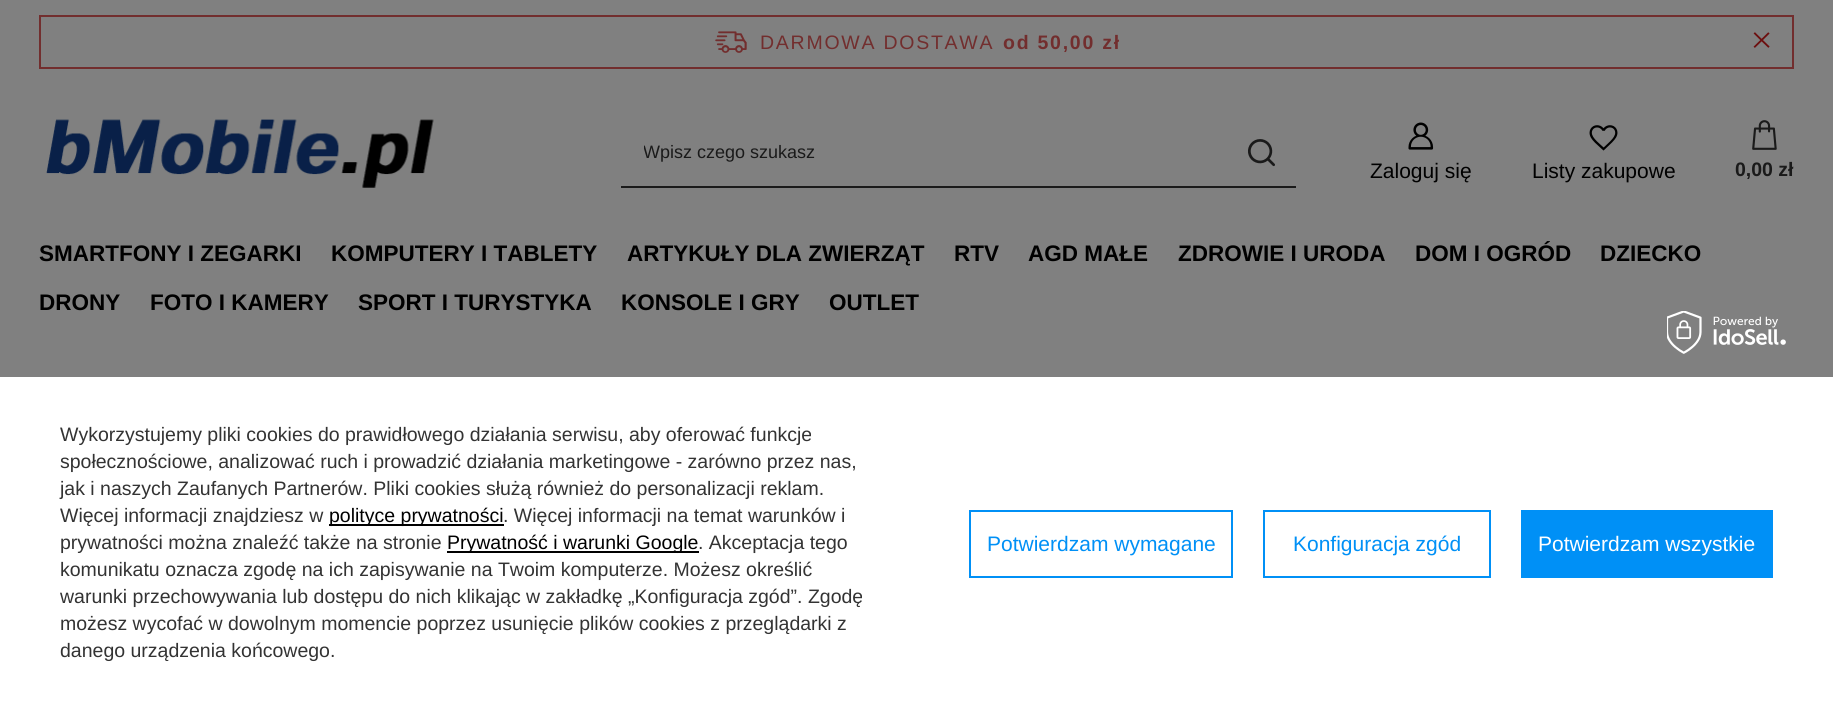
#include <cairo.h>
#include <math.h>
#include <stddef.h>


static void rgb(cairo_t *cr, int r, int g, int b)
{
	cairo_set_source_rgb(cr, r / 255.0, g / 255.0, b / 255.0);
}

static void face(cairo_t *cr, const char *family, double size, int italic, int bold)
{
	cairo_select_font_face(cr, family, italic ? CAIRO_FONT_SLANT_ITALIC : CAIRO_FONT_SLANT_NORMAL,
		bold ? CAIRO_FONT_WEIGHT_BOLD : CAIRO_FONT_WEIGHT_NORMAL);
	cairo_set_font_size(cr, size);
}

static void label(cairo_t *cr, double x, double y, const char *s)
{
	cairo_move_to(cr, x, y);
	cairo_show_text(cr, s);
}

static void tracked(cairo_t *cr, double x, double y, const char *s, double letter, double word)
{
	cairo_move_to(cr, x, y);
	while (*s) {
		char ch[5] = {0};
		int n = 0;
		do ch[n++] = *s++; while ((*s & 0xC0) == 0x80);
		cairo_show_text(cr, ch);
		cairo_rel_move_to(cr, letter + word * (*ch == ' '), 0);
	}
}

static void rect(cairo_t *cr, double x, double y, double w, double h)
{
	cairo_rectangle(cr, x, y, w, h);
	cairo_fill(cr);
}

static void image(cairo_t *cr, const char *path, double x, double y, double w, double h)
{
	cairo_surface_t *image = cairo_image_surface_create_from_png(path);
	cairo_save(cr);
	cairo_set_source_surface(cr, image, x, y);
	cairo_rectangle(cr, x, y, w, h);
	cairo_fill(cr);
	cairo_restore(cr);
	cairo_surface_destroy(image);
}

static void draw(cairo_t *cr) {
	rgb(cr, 128, 128, 128);
	cairo_paint(cr);
	cairo_rectangle(cr, 40, 16, 1753, 52);
	rgb(cr, 114, 46, 46);
	cairo_stroke(cr);
	image(cr, "image0.png", 715, 31, 32, 22);
	face(cr, "Liberation Sans", 19.5, 0, 0);
	tracked(cr, 760, 49, "DARMOWA DOSTAWA", 1.75, 0);
	face(cr, "Liberation Sans", 19.5, 0, 1);
	tracked(cr, 1003, 49, "od 50,00 zł", 1.75, 0);
	image(cr, "image1.png", 1753, 32, 17, 16);
	image(cr, "image2.png", 46, 119, 388, 69);
	rgb(cr, 26, 26, 26);
	rect(cr, 621, 186, 675, 2);
	cairo_save(cr);
	cairo_rectangle(cr, 644, 143, 540, 21);
	cairo_clip(cr);
	face(cr, "Liberation Sans", 18, 0, 0);
	label(cr, 643, 158, "Wpisz czego szukasz");
	cairo_restore(cr);
	image(cr, "image3.png", 1248, 139, 27, 28);
	image(cr, "image4.png", 1408, 122, 26, 28);
	face(cr, "Liberation Sans", 21, 0, 0);
	rgb(cr, 0, 0, 0);
	label(cr, 1370, 178, "Zaloguj się");
	image(cr, "image5.png", 1589, 125, 29, 26);
	label(cr, 1532, 178, "Listy zakupowe");
	image(cr, "image6.png", 1752, 120, 25, 30);
	face(cr, "Liberation Sans", 19.5, 0, 1);
	rgb(cr, 26, 26, 26);
	label(cr, 1735, 176, "0,00 zł");
	face(cr, "Liberation Sans", 22.5, 0, 1);
	rgb(cr, 0, 0, 0);
	label(cr, 39, 261, "SMARTFONY I ZEGARKI");
	label(cr, 331, 261, "KOMPUTERY I TABLETY");
	label(cr, 627, 261, "ARTYKUŁY DLA ZWIERZĄT");
	label(cr, 954, 261, "RTV");
	label(cr, 1028, 261, "AGD MAŁE");
	label(cr, 1178, 261, "ZDROWIE I URODA");
	label(cr, 1415, 261, "DOM I OGRÓD");
	label(cr, 1600, 261, "DZIECKO");
	label(cr, 39, 310, "DRONY");
	label(cr, 150, 310, "FOTO I KAMERY");
	label(cr, 358, 310, "SPORT I TURYSTYKA");
	label(cr, 621, 310, "KONSOLE I GRY");
	label(cr, 829, 310, "OUTLET");
	rgb(cr, 255, 255, 255);
	rect(cr, 0, 377, 1833, 332);
	image(cr, "image7.png", 1667, 311, 119, 43);
	face(cr, "Liberation Sans", 19.5, 0, 0);
	rgb(cr, 51, 51, 51);
	label(cr, 60, 441, "Wykorzystujemy pliki cookies do prawidłowego działania serwisu, aby oferować funkcje");
	label(cr, 60, 468, "społecznościowe, analizować ruch i prowadzić działania marketingowe - zarówno przez nas,");
	label(cr, 60, 495, "jak i naszych Zaufanych Partnerów. Pliki cookies służą również do personalizacji reklam.");
	label(cr, 60, 522, "Więcej informacji znajdziesz w");
	rgb(cr, 0, 0, 0);
	rect(cr, 329, 524, 175, 2);
	label(cr, 329, 522, "polityce prywatności");
	rgb(cr, 51, 51, 51);
	label(cr, 503, 522, ". Więcej informacji na temat warunków i");
	label(cr, 60, 549, "prywatności można znaleźć także na stronie");
	rgb(cr, 0, 0, 0);
	rect(cr, 447, 551, 252, 2);
	label(cr, 447, 549, "Prywatność i warunki Google");
	rgb(cr, 51, 51, 51);
	label(cr, 698, 549, ". Akceptacja tego");
	label(cr, 60, 576, "komunikatu oznacza zgodę na ich zapisywanie na Twoim komputerze. Możesz określić");
	label(cr, 60, 603, "warunki przechowywania lub dostępu do nich klikając w zakładkę „Konfiguracja zgód”. Zgodę");
	label(cr, 60, 630, "możesz wycofać w dowolnym momencie poprzez usunięcie plików cookies z przeglądarki z");
	label(cr, 60, 657, "danego urządzenia końcowego.");
	cairo_rectangle(cr, 970, 511, 262, 66);
	rgb(cr, 0, 144, 246);
	cairo_stroke(cr);
	face(cr, "Liberation Sans", 21, 0, 0);
	label(cr, 987, 551, "Potwierdzam wymagane");
	cairo_rectangle(cr, 1264, 511, 226, 66);
	cairo_stroke(cr);
	label(cr, 1293, 551, "Konfiguracja zgód");
	rect(cr, 1521, 510, 252, 68);
	rgb(cr, 255, 255, 255);
	label(cr, 1538, 551, "Potwierdzam wszystkie");
}

int main(void) {
	cairo_surface_t *surface = cairo_image_surface_create(CAIRO_FORMAT_RGB24, 1833, 709);
	cairo_t *cr = cairo_create(surface);
	cairo_font_options_t *options = cairo_font_options_create();
	cairo_font_options_set_hint_metrics(options, CAIRO_HINT_METRICS_OFF);
	cairo_font_options_set_hint_style(options, CAIRO_HINT_STYLE_NONE);
	cairo_set_font_options(cr, options);
	cairo_set_miter_limit(cr, 4);
	draw(cr);
	cairo_surface_write_to_png(surface, "render.png");
	cairo_font_options_destroy(options);
	cairo_destroy(cr);
	cairo_surface_destroy(surface);
	return 0;
}
